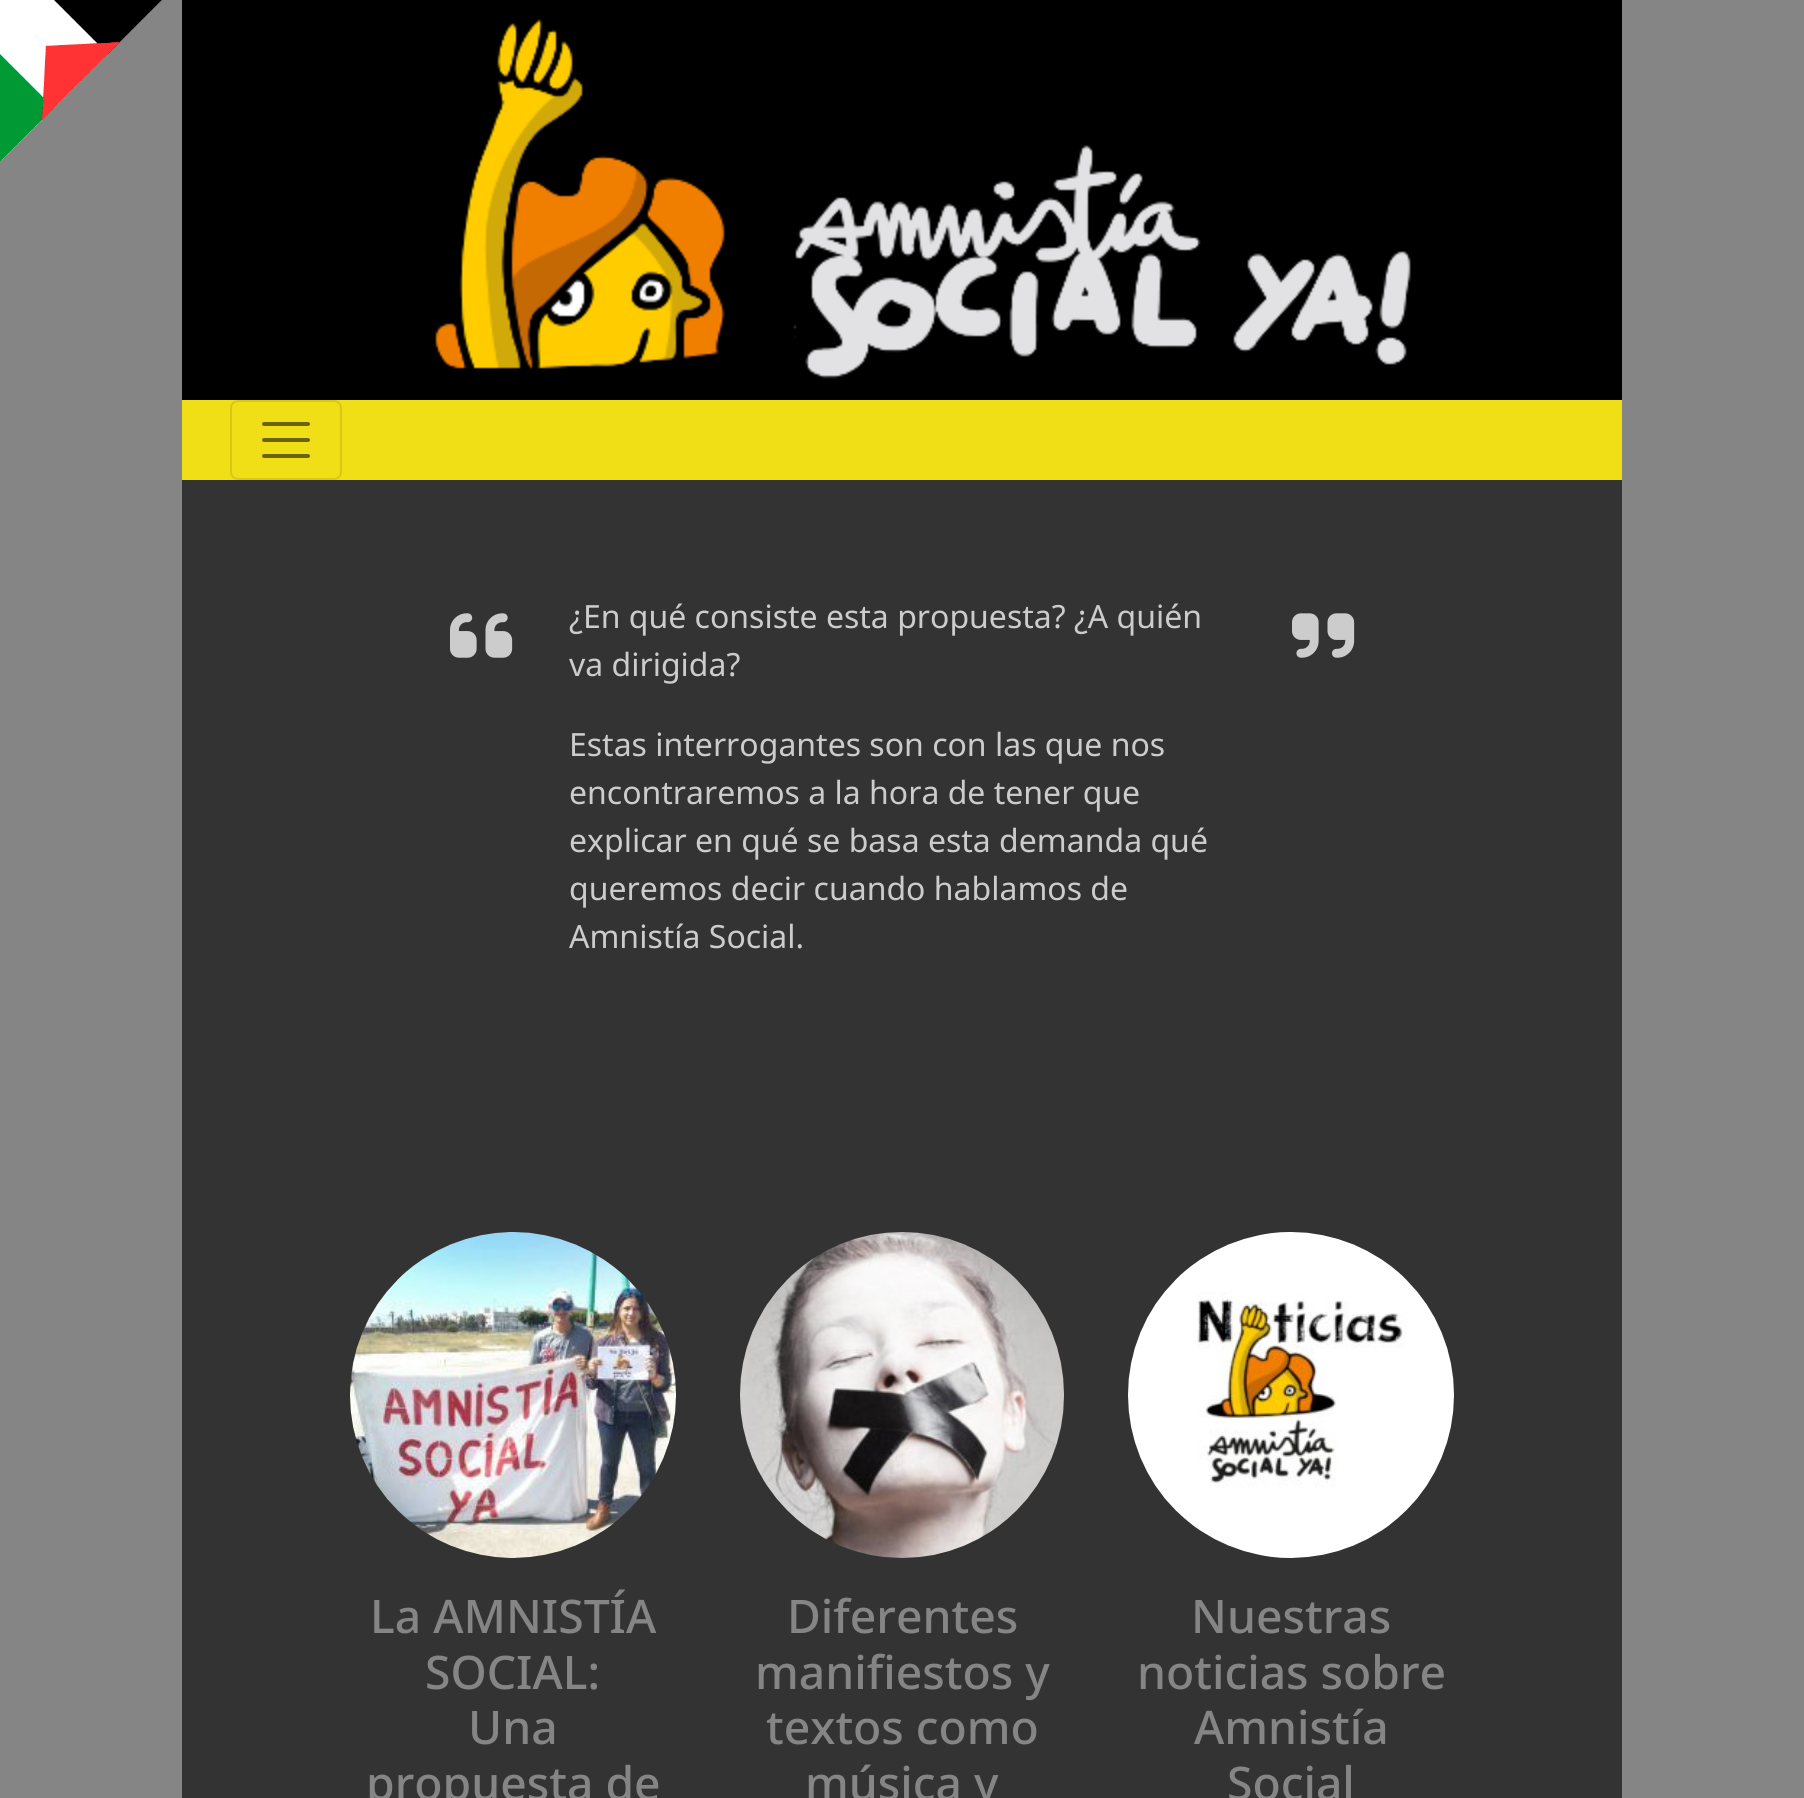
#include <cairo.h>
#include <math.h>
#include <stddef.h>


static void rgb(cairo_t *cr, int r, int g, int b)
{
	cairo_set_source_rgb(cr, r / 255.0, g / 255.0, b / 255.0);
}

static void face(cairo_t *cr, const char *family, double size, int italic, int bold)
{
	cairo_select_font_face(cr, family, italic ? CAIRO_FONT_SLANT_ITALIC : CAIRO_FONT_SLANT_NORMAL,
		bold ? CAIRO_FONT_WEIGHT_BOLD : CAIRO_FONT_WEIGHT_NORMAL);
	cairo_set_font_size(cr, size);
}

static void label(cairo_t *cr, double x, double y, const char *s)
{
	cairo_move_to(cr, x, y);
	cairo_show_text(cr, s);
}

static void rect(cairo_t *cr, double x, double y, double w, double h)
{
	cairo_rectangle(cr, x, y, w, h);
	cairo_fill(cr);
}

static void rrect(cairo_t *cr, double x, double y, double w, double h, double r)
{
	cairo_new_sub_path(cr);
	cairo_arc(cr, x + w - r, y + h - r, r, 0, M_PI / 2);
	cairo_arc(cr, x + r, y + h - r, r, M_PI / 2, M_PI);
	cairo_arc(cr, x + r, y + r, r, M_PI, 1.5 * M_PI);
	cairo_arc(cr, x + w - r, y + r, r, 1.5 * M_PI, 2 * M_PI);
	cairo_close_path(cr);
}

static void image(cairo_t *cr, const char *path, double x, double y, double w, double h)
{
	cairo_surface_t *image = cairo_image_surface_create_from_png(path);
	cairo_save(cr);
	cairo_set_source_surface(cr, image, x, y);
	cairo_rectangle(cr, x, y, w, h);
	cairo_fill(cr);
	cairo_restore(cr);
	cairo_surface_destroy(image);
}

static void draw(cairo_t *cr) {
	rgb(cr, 133, 133, 133);
	cairo_paint(cr);
	image(cr, "image0.png", 0, 0, 162, 162);
	rgb(cr, 0, 0, 0);
	rect(cr, 182, 0, 1440, 400);
	image(cr, "image1.png", 435, 19, 976, 360);
	rgb(cr, 240, 222, 22);
	rect(cr, 182, 400, 1440, 80);
	rrect(cr, 231, 401, 110, 78, 7);
	rgb(cr, 216, 200, 20);
	cairo_stroke(cr);
	cairo_new_path(cr);
	cairo_move_to(cr, 264, 424);
	cairo_line_to(cr, 308, 424);
	cairo_move_to(cr, 264, 440);
	cairo_line_to(cr, 308, 440);
	cairo_move_to(cr, 264, 456);
	cairo_line_to(cr, 308, 456);
	rgb(cr, 108, 100, 10);
	cairo_set_line_width(cr, 4);
	cairo_set_line_cap(cr, CAIRO_LINE_CAP_ROUND);
	cairo_stroke(cr);
	rgb(cr, 51, 51, 51);
	rect(cr, 182, 480, 1440, 1318);
	image(cr, "image2.png", 450, 613, 63, 45);
	face(cr, "Noto Sans", 32, 0, 0);
	rgb(cr, 204, 204, 204);
	label(cr, 569, 628, "¿En qué consiste esta propuesta? ¿A quién");
	label(cr, 569, 676, "va dirigida?");
	label(cr, 569, 756, "Estas interrogantes son con las que nos");
	label(cr, 569, 804, "encontraremos a la hora de tener que");
	label(cr, 569, 852, "explicar en qué se basa esta demanda qué");
	label(cr, 569, 900, "queremos decir cuando hablamos de");
	label(cr, 569, 948, "Amnistía Social.");
	image(cr, "image3.png", 1292, 613, 63, 45);
	image(cr, "image4.png", 350, 1232, 326, 326);
	face(cr, "Noto Sans Medium", 46.25, 0, 0);
	rgb(cr, 133, 133, 133);
	label(cr, 370, 1633, "La AMNISTÍA");
	label(cr, 425, 1689, "SOCIAL:");
	label(cr, 468, 1744, "Una");
	label(cr, 366, 1800, "propuesta de");
	image(cr, "image5.png", 740, 1232, 324, 326);
	label(cr, 787, 1633, "Diferentes");
	label(cr, 755, 1689, "manifiestos y");
	label(cr, 766, 1744, "textos como");
	label(cr, 805, 1800, "música y");
	image(cr, "image6.png", 1128, 1232, 326, 326);
	label(cr, 1191, 1633, "Nuestras");
	label(cr, 1137, 1689, "noticias sobre");
	label(cr, 1194, 1744, "Amnistía");
	label(cr, 1227, 1800, "Social");
}

int main(void) {
	cairo_surface_t *surface = cairo_image_surface_create(CAIRO_FORMAT_RGB24, 1804, 1798);
	cairo_t *cr = cairo_create(surface);
	cairo_font_options_t *options = cairo_font_options_create();
	cairo_font_options_set_hint_metrics(options, CAIRO_HINT_METRICS_OFF);
	cairo_font_options_set_hint_style(options, CAIRO_HINT_STYLE_NONE);
	cairo_set_font_options(cr, options);
	cairo_set_miter_limit(cr, 4);
	draw(cr);
	cairo_surface_write_to_png(surface, "render.png");
	cairo_font_options_destroy(options);
	cairo_destroy(cr);
	cairo_surface_destroy(surface);
	return 0;
}
